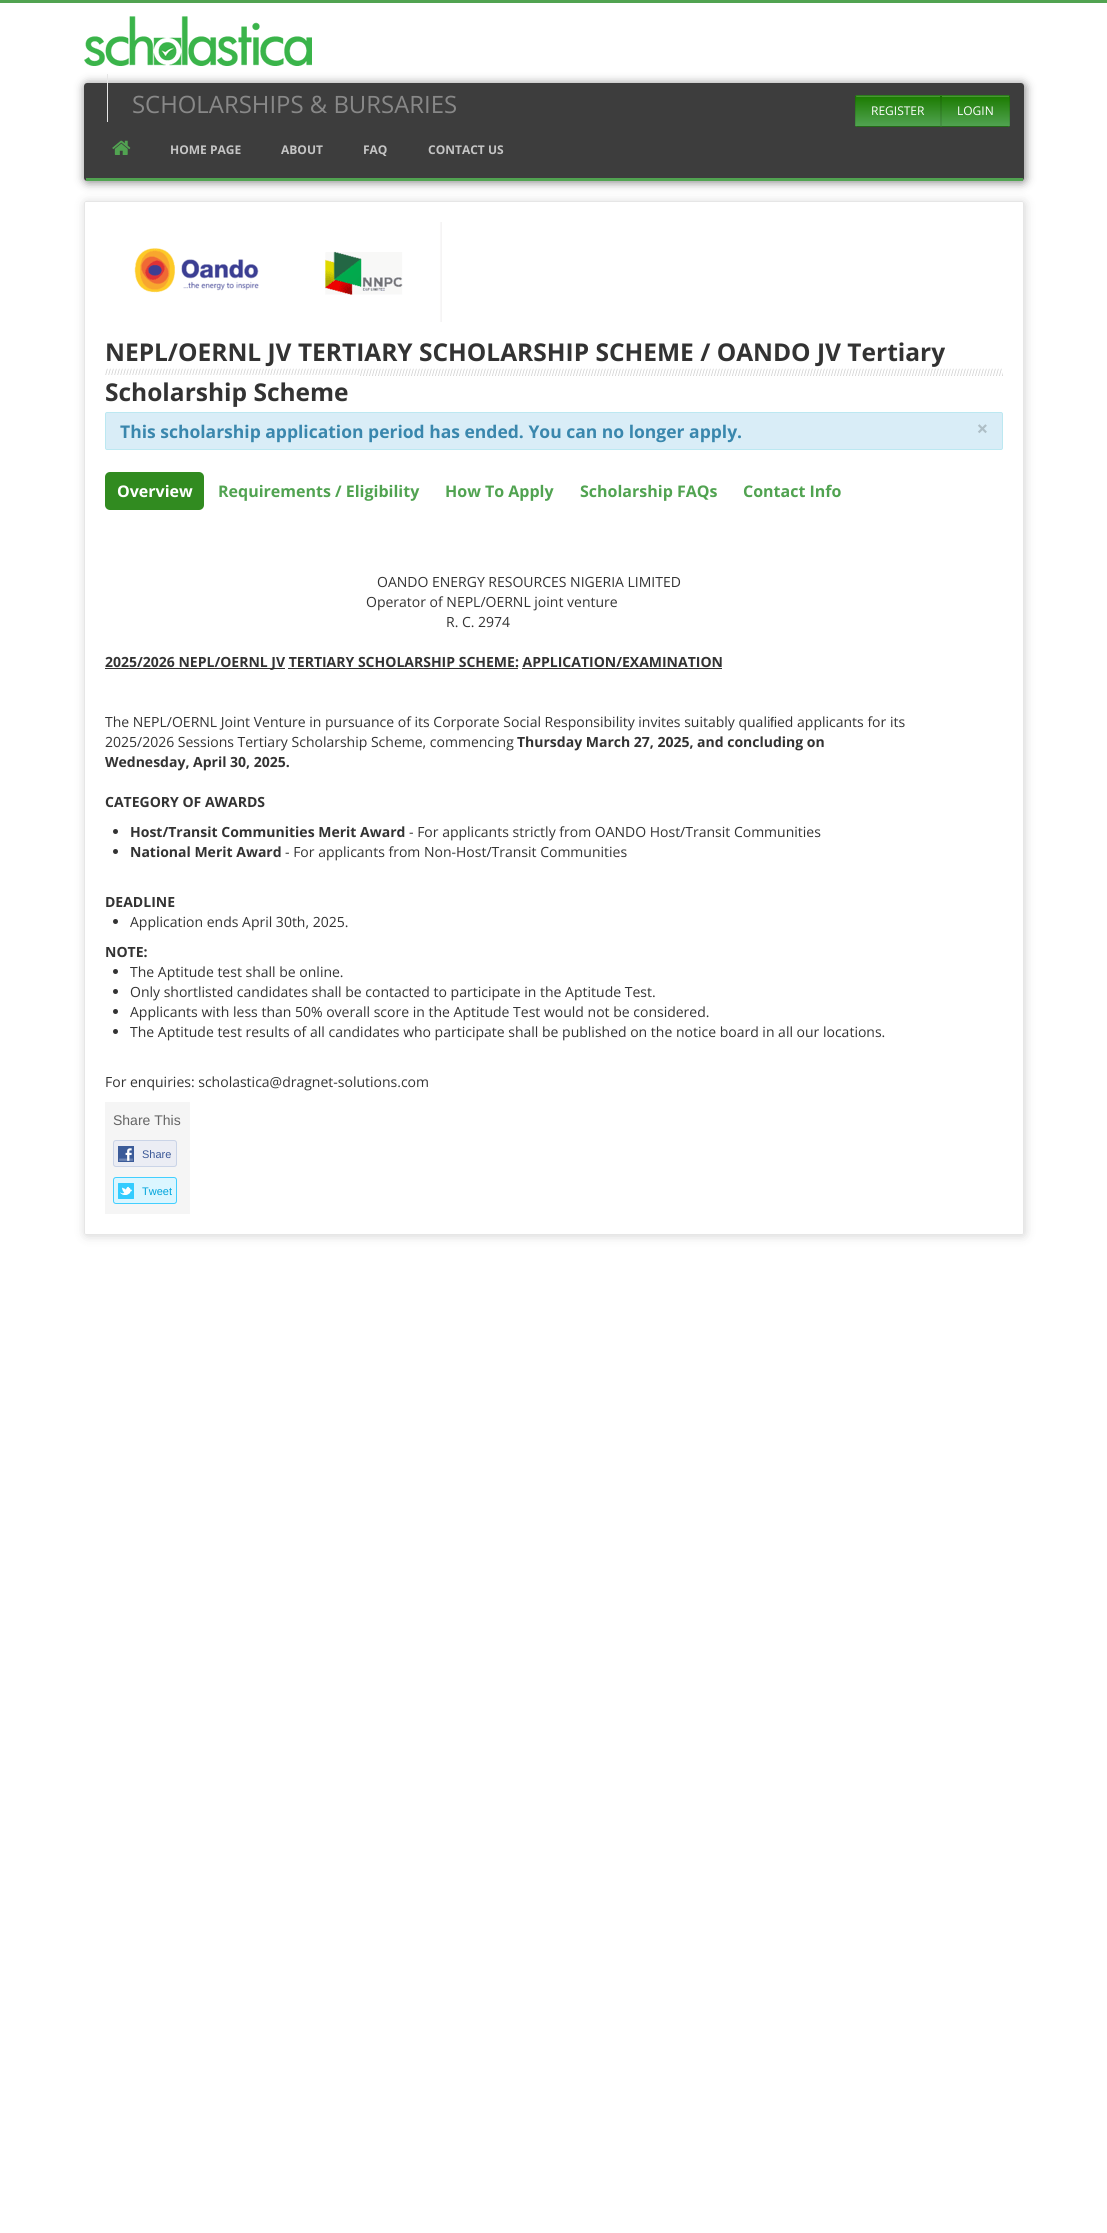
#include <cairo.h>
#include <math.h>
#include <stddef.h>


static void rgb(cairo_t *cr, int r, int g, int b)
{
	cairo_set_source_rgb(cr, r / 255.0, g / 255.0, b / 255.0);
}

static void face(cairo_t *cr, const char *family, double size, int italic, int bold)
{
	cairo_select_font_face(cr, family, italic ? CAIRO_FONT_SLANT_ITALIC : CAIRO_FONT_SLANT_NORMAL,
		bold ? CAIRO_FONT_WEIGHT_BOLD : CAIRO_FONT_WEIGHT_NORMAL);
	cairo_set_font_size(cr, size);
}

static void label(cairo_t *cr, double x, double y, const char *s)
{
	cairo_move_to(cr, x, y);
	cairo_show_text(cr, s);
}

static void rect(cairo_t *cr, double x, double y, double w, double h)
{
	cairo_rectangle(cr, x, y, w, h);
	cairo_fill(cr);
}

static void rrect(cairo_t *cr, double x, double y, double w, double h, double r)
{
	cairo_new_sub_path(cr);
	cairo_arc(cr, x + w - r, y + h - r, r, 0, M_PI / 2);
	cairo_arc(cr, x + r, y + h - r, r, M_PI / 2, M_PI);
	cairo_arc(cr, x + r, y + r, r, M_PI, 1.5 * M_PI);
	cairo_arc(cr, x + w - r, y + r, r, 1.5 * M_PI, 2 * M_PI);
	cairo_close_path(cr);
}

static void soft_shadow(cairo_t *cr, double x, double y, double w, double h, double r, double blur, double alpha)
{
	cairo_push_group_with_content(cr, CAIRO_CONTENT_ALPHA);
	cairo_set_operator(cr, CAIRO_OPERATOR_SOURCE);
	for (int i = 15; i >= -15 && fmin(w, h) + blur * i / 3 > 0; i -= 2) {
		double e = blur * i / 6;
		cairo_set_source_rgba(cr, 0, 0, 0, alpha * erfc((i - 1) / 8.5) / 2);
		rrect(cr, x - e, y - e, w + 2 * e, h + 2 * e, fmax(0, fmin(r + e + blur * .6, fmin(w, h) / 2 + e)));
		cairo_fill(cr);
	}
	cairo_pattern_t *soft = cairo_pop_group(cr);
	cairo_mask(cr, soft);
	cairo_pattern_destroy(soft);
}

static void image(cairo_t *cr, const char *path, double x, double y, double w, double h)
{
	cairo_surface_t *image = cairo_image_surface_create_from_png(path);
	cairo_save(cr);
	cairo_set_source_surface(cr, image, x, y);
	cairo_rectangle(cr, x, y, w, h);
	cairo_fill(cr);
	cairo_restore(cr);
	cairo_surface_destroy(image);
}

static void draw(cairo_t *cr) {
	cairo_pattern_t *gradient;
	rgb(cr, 255, 255, 255);
	cairo_paint(cr);
	rgb(cr, 81, 163, 81);
	rect(cr, 0, 0, 1107, 3);
	image(cr, "image0.png", 84, 16, 228, 50);
	cairo_save(cr);
	cairo_set_fill_rule(cr, CAIRO_FILL_RULE_EVEN_ODD);
	cairo_new_path(cr);
	cairo_move_to(cr, 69, 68);
	cairo_line_to(cr, 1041, 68);
	cairo_line_to(cr, 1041, 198);
	cairo_line_to(cr, 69, 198);
	cairo_close_path(cr);
	cairo_move_to(cr, 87, 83);
	cairo_line_to(cr, 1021, 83);
	cairo_curve_to(cr, 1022.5, 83, 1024, 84.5, 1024, 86);
	cairo_line_to(cr, 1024, 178);
	cairo_curve_to(cr, 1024, 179.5, 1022.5, 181, 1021, 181);
	cairo_line_to(cr, 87, 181);
	cairo_curve_to(cr, 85.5, 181, 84, 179.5, 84, 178);
	cairo_line_to(cr, 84, 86);
	cairo_curve_to(cr, 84, 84.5, 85.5, 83, 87, 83);
	cairo_close_path(cr);
	cairo_clip(cr);
	rgb(cr, 36, 36, 36);
	soft_shadow(cr, 85, 84, 940, 98, 3, 5, 0.6);
	cairo_restore(cr);
	cairo_set_source_rgba(cr, 0.141, 0.141, 0.141, 0.88);
	rrect(cr, 84, 83, 940, 98, 3);
	cairo_fill(cr);
	rgb(cr, 230, 230, 230);
	rect(cr, 107, 74, 1, 48);
	face(cr, "Open Sans", 23.9, 0, 0);
	rgb(cr, 136, 136, 136);
	label(cr, 132, 113, "SCHOLARSHIPS & BURSARIES");
	rgb(cr, 81, 163, 81);
	rect(cr, 86, 178, 937, 3);
	rgb(cr, 49, 139, 32);
	cairo_new_path(cr);
	cairo_move_to(cr, 857, 95);
	cairo_line_to(cr, 941, 95);
	cairo_line_to(cr, 941, 127);
	cairo_line_to(cr, 857, 127);
	cairo_curve_to(cr, 856, 127, 855, 126, 855, 125);
	cairo_line_to(cr, 855, 97);
	cairo_curve_to(cr, 855, 96, 856, 95, 857, 95);
	cairo_close_path(cr);
	cairo_fill(cr);
	gradient = cairo_pattern_create_linear(898, 96, 898, 126);
	cairo_pattern_add_color_stop_rgba(gradient, 0, 0.106, 0.482, 0, 1);
	cairo_pattern_add_color_stop_rgba(gradient, 1, 0.318, 0.639, 0.318, 1);
	cairo_set_source(cr, gradient);
	cairo_pattern_destroy(gradient);
	rect(cr, 855, 96, 86, 30);
	rgb(cr, 73, 150, 52);
	cairo_new_path(cr);
	cairo_move_to(cr, 857, 97);
	cairo_line_to(cr, 940, 97);
	cairo_line_to(cr, 940, 96);
	cairo_line_to(cr, 857, 96);
	cairo_curve_to(cr, 856, 96, 856, 97, 856, 98);
	cairo_curve_to(cr, 856, 97, 856, 97, 857, 97);
	cairo_close_path(cr);
	cairo_fill(cr);
	cairo_set_source_rgba(cr, 0, 0, 0, 0.1);
	cairo_new_path(cr);
	cairo_move_to(cr, 857, 95);
	cairo_line_to(cr, 856, 96);
	cairo_line_to(cr, 940, 96);
	cairo_line_to(cr, 941, 95);
	cairo_close_path(cr);
	cairo_fill(cr);
	cairo_new_path(cr);
	cairo_move_to(cr, 941, 95);
	cairo_line_to(cr, 940, 96);
	cairo_line_to(cr, 940, 126);
	cairo_line_to(cr, 941, 127);
	cairo_close_path(cr);
	cairo_fill(cr);
	cairo_set_source_rgba(cr, 0, 0, 0, 0.25);
	cairo_new_path(cr);
	cairo_move_to(cr, 941, 127);
	cairo_line_to(cr, 940, 126);
	cairo_line_to(cr, 856, 126);
	cairo_line_to(cr, 857, 127);
	cairo_close_path(cr);
	cairo_fill(cr);
	cairo_set_source_rgba(cr, 0, 0, 0, 0.1);
	cairo_new_path(cr);
	cairo_move_to(cr, 855, 97);
	cairo_line_to(cr, 855, 125);
	cairo_line_to(cr, 855.5, 126.5);
	cairo_line_to(cr, 856, 126);
	cairo_line_to(cr, 856, 96);
	cairo_line_to(cr, 855.5, 95.5);
	cairo_close_path(cr);
	cairo_fill(cr);
	face(cr, "Open Sans", 12, 0, 0);
	rgb(cr, 255, 255, 255);
	label(cr, 871, 115, "REGISTER");
	rgb(cr, 49, 139, 32);
	cairo_new_path(cr);
	cairo_move_to(cr, 941, 95);
	cairo_line_to(cr, 1008, 95);
	cairo_curve_to(cr, 1009, 95, 1010, 96, 1010, 97);
	cairo_line_to(cr, 1010, 125);
	cairo_curve_to(cr, 1010, 126, 1009, 127, 1008, 127);
	cairo_line_to(cr, 941, 127);
	cairo_close_path(cr);
	cairo_fill(cr);
	gradient = cairo_pattern_create_linear(976, 96, 976, 126);
	cairo_pattern_add_color_stop_rgba(gradient, 0, 0.106, 0.482, 0, 1);
	cairo_pattern_add_color_stop_rgba(gradient, 1, 0.318, 0.639, 0.318, 1);
	cairo_set_source(cr, gradient);
	cairo_pattern_destroy(gradient);
	rect(cr, 941, 96, 69, 30);
	rgb(cr, 73, 150, 52);
	cairo_new_path(cr);
	cairo_move_to(cr, 942, 97);
	cairo_line_to(cr, 1008, 97);
	cairo_curve_to(cr, 1009, 97, 1009, 97, 1009, 98);
	cairo_line_to(cr, 1009, 97);
	cairo_curve_to(cr, 1009, 96, 1009, 96, 1008, 96);
	cairo_line_to(cr, 942, 96);
	cairo_close_path(cr);
	cairo_fill(cr);
	cairo_set_source_rgba(cr, 0, 0, 0, 0.1);
	cairo_new_path(cr);
	cairo_move_to(cr, 941, 95);
	cairo_line_to(cr, 942, 96);
	cairo_line_to(cr, 1009, 96);
	cairo_line_to(cr, 1008, 95);
	cairo_close_path(cr);
	cairo_fill(cr);
	cairo_new_path(cr);
	cairo_move_to(cr, 1010, 125);
	cairo_line_to(cr, 1010, 97);
	cairo_line_to(cr, 1009.5, 95.5);
	cairo_line_to(cr, 1009, 96);
	cairo_line_to(cr, 1009, 126);
	cairo_line_to(cr, 1009.5, 126.5);
	cairo_close_path(cr);
	cairo_fill(cr);
	rgb(cr, 37, 104, 24);
	cairo_new_path(cr);
	cairo_move_to(cr, 1008, 127);
	cairo_line_to(cr, 1009, 126);
	cairo_line_to(cr, 942, 126);
	cairo_line_to(cr, 941, 127);
	cairo_close_path(cr);
	cairo_fill(cr);
	cairo_set_source_rgba(cr, 0, 0, 0, 0.1);
	cairo_new_path(cr);
	cairo_move_to(cr, 941, 95);
	cairo_line_to(cr, 941, 127);
	cairo_line_to(cr, 942, 126);
	cairo_line_to(cr, 942, 96);
	cairo_close_path(cr);
	cairo_fill(cr);
	rgb(cr, 255, 255, 255);
	label(cr, 957, 115, "LOGIN");
	image(cr, "image1.png", 112, 140, 19, 15);
	face(cr, "Open Sans", 12, 0, 1);
	rgb(cr, 197, 197, 197);
	label(cr, 170, 154, "HOME PAGE");
	label(cr, 281, 154, "ABOUT");
	label(cr, 363, 154, "FAQ");
	label(cr, 428, 154, "CONTACT US");
	cairo_save(cr);
	cairo_set_fill_rule(cr, CAIRO_FILL_RULE_EVEN_ODD);
	cairo_new_path(cr);
	cairo_move_to(cr, 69, 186);
	cairo_line_to(cr, 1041, 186);
	cairo_line_to(cr, 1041, 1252);
	cairo_line_to(cr, 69, 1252);
	cairo_close_path(cr);
	cairo_move_to(cr, 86, 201);
	cairo_line_to(cr, 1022, 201);
	cairo_curve_to(cr, 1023, 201, 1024, 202, 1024, 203);
	cairo_line_to(cr, 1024, 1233);
	cairo_curve_to(cr, 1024, 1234, 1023, 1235, 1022, 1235);
	cairo_line_to(cr, 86, 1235);
	cairo_curve_to(cr, 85, 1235, 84, 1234, 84, 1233);
	cairo_line_to(cr, 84, 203);
	cairo_curve_to(cr, 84, 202, 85, 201, 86, 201);
	cairo_close_path(cr);
	cairo_clip(cr);
	rgb(cr, 36, 36, 36);
	soft_shadow(cr, 85, 202, 940, 1034, 2, 5, 0.2);
	cairo_restore(cr);
	rrect(cr, 84.5, 201.5, 939, 1033, 1.5);
	rgb(cr, 230, 230, 230);
	cairo_set_line_width(cr, 1);
	cairo_stroke(cr);
	image(cr, "image2.png", 134, 222, 308, 100);
	image(cr, "image3.png", 105, 368, 898, 8);
	face(cr, "Open Sans", 24.5, 0, 1);
	rgb(cr, 51, 51, 51);
	label(cr, 105, 361, "NEPL/OERNL JV TERTIARY SCHOLARSHIP SCHEME / OANDO JV Tertiary");
	label(cr, 105, 401, "Scholarship Scheme");
	rgb(cr, 255, 255, 255);
	rect(cr, 105, 375, 253, 1);
	rgb(cr, 217, 237, 247);
	rrect(cr, 105.5, 412.5, 897, 37, 1.5);
	cairo_fill_preserve(cr);
	rgb(cr, 188, 232, 241);
	cairo_stroke(cr);
	face(cr, "Open Sans", 17.5, 0, 1);
	rgb(cr, 58, 135, 173);
	label(cr, 120, 438, "This scholarship application period has ended. You can no longer apply.");
	face(cr, "Rambla", 20, 0, 1);
	rgb(cr, 174, 190, 198);
	label(cr, 977, 435, "×");
	rgb(cr, 49, 139, 32);
	rrect(cr, 105, 472, 99, 38, 5);
	cairo_fill(cr);
	face(cr, "Open Sans", 16, 0, 1);
	rgb(cr, 255, 255, 255);
	label(cr, 117, 497, "Overview");
	rgb(cr, 81, 163, 81);
	label(cr, 218, 497, "Requirements / Eligibility");
	label(cr, 445, 497, "How To Apply");
	label(cr, 580, 497, "Scholarship FAQs");
	label(cr, 743, 497, "Contact Info");
	face(cr, "Open Sans", 14, 0, 0);
	rgb(cr, 51, 51, 51);
	label(cr, 377, 587, "OANDO ENERGY RESOURCES NIGERIA LIMITED");
	label(cr, 366, 607, "Operator of NEPL/OERNL joint venture");
	label(cr, 446, 627, "R. C. 2974");
	rect(cr, 105, 668, 180, 1);
	face(cr, "Open Sans", 14, 0, 1);
	label(cr, 105, 667, "2025/2026 NEPL/OERNL JV TERTIARY SCHOLARSHIP SCHEME: APPLICATION/EXAMINATION");
	rect(cr, 288, 668, 230, 1);
	rect(cr, 522, 668, 200, 1);
	face(cr, "Open Sans", 14, 0, 0);
	label(cr, 105, 727, "The NEPL/OERNL Joint Venture in pursuance of its Corporate Social Responsibility invites suitably quali");
	face(cr, "Liberation Sans", 14, 0, 0);
	label(cr, 770, 727, "ﬁ");
	face(cr, "Open Sans", 14, 0, 0);
	label(cr, 777, 727, "ed applicants for its");
	label(cr, 105, 747, "2025/2026 Sessions Tertiary Scholarship Scheme, commencing");
	face(cr, "Open Sans", 14, 0, 1);
	label(cr, 517, 747, "Thursday March 27, 2025, and concluding on");
	label(cr, 105, 767, "Wednesday, April 30, 2025.");
	label(cr, 105, 807, "CATEGORY OF AWARDS");
	cairo_new_path(cr);
	cairo_arc(cr, 115.5, 831.5, 2.5, 0, 2 * M_PI);
	cairo_fill(cr);
	label(cr, 130, 837, "Host/Transit Communities Merit Award");
	face(cr, "Open Sans", 14, 0, 0);
	label(cr, 409, 837, "- For applicants strictly from OANDO Host/Transit Communities");
	cairo_new_path(cr);
	cairo_arc(cr, 115.5, 851.5, 2.5, 0, 2 * M_PI);
	cairo_fill(cr);
	face(cr, "Open Sans", 14, 0, 1);
	label(cr, 130, 857, "National Merit Award");
	face(cr, "Open Sans", 14, 0, 0);
	label(cr, 285, 857, "- For applicants from Non-Host/Transit Communities");
	face(cr, "Open Sans", 14, 0, 1);
	label(cr, 105, 907, "DEADLINE");
	cairo_new_path(cr);
	cairo_arc(cr, 115.5, 921.5, 2.5, 0, 2 * M_PI);
	cairo_fill(cr);
	face(cr, "Open Sans", 14, 0, 0);
	label(cr, 130, 927, "Application ends April 30th, 2025.");
	face(cr, "Open Sans", 14, 0, 1);
	label(cr, 105, 957, "NOTE:");
	cairo_new_path(cr);
	cairo_arc(cr, 115.5, 971.5, 2.5, 0, 2 * M_PI);
	cairo_fill(cr);
	face(cr, "Open Sans", 14, 0, 0);
	label(cr, 130, 977, "The Aptitude test shall be online.");
	cairo_new_path(cr);
	cairo_arc(cr, 115.5, 991.5, 2.5, 0, 2 * M_PI);
	cairo_fill(cr);
	label(cr, 130, 997, "Only shortlisted candidates shall be contacted to participate in the Aptitude Test.");
	cairo_new_path(cr);
	cairo_arc(cr, 115.5, 1011.5, 2.5, 0, 2 * M_PI);
	cairo_fill(cr);
	label(cr, 130, 1017, "Applicants with less than 50% overall score in the Aptitude Test would not be considered.");
	cairo_new_path(cr);
	cairo_arc(cr, 115.5, 1031.5, 2.5, 0, 2 * M_PI);
	cairo_fill(cr);
	label(cr, 130, 1037, "The Aptitude test results of all candidates who participate shall be published on the notice board in all our locations.");
	label(cr, 105, 1087, "For enquiries: scholastica@dragnet-solutions.com");
	rgb(cr, 245, 245, 245);
	rect(cr, 105, 1102, 85, 112);
	face(cr, "Liberation Sans", 14, 0, 0);
	rgb(cr, 100, 100, 100);
	label(cr, 113, 1125, "Share This");
	rgb(cr, 235, 237, 244);
	rrect(cr, 113, 1140, 64, 27, 3);
	cairo_fill(cr);
	image(cr, "image4.png", 118, 1146, 16, 16);
	rrect(cr, 113.5, 1140.5, 63, 26, 2.5);
	rgb(cr, 202, 212, 231);
	cairo_stroke(cr);
	face(cr, "Liberation Sans", 11, 0, 0);
	rgb(cr, 59, 88, 151);
	label(cr, 142, 1158, "Share");
	rgb(cr, 219, 246, 255);
	rrect(cr, 113, 1177, 64, 27, 3);
	cairo_fill(cr);
	image(cr, "image5.png", 118, 1183, 16, 16);
	rrect(cr, 113.5, 1177.5, 63, 26, 2.5);
	rgb(cr, 66, 207, 255);
	cairo_stroke(cr);
	rgb(cr, 0, 164, 219);
	label(cr, 142, 1195, "Tweet");
}

int main(void) {
	cairo_surface_t *surface = cairo_image_surface_create(CAIRO_FORMAT_RGB24, 1107, 2233);
	cairo_t *cr = cairo_create(surface);
	cairo_font_options_t *options = cairo_font_options_create();
	cairo_font_options_set_hint_metrics(options, CAIRO_HINT_METRICS_OFF);
	cairo_font_options_set_hint_style(options, CAIRO_HINT_STYLE_NONE);
	cairo_set_font_options(cr, options);
	cairo_set_miter_limit(cr, 4);
	draw(cr);
	cairo_surface_write_to_png(surface, "render.png");
	cairo_font_options_destroy(options);
	cairo_destroy(cr);
	cairo_surface_destroy(surface);
	return 0;
}
